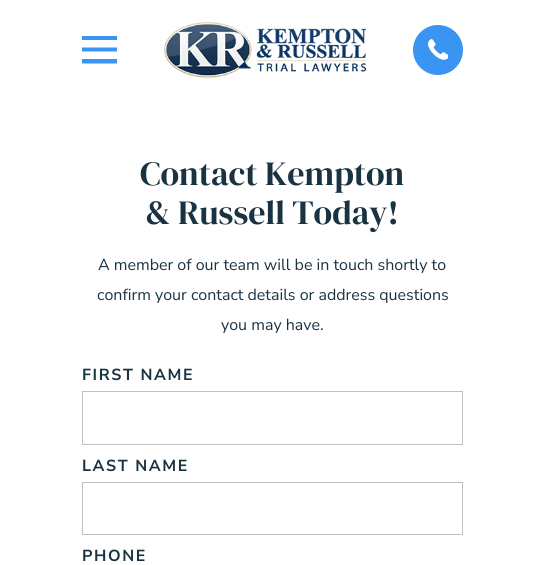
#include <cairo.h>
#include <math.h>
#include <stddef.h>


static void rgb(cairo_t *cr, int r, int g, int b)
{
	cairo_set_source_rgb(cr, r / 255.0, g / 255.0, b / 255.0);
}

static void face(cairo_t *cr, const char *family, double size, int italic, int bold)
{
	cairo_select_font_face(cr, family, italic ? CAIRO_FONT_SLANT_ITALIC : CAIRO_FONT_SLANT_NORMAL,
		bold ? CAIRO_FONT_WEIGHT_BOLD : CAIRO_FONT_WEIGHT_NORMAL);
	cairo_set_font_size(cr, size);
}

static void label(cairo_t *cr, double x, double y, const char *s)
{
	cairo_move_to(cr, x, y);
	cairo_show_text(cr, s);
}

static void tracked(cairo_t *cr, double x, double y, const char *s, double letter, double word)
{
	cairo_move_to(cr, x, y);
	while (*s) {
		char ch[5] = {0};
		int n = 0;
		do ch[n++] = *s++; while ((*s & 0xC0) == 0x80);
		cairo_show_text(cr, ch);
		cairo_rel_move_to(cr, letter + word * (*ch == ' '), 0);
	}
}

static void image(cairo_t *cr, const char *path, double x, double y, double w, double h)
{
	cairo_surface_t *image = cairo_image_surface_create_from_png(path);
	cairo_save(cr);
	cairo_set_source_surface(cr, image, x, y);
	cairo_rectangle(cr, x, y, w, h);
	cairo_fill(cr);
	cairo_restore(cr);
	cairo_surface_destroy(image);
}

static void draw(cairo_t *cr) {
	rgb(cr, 255, 255, 255);
	cairo_paint(cr);
	rgb(cr, 57, 148, 242);
	cairo_new_path(cr);
	cairo_move_to(cr, 82, 36);
	cairo_line_to(cr, 82, 40);
	cairo_line_to(cr, 117, 40);
	cairo_line_to(cr, 117, 36);
	cairo_close_path(cr);
	cairo_move_to(cr, 82, 47.5);
	cairo_line_to(cr, 82, 51.5);
	cairo_line_to(cr, 117, 51.5);
	cairo_line_to(cr, 117, 47.5);
	cairo_close_path(cr);
	cairo_move_to(cr, 82, 59);
	cairo_line_to(cr, 82, 63.5);
	cairo_line_to(cr, 117, 63.5);
	cairo_line_to(cr, 117, 59);
	cairo_close_path(cr);
	cairo_fill(cr);
	image(cr, "image0.png", 164, 22, 202, 56);
	cairo_arc(cr, 438, 50, 25, 0, 2 * M_PI);
	cairo_fill(cr);
	image(cr, "image1.png", 428, 39, 20, 21);
	face(cr, "DM Serif Display", 34, 0, 0);
	rgb(cr, 26, 51, 66);
	label(cr, 140, 185, "Contact Kempton");
	label(cr, 146, 224, "& Russell Today!");
	face(cr, "Nunito Sans", 16, 0, 0);
	label(cr, 98, 270, "A member of our team will be in touch shortly to");
	label(cr, 97, 300, "confirm your contact details or address questions");
	label(cr, 221, 330, "you may have.");
	face(cr, "Nunito Sans", 16, 0, 1);
	tracked(cr, 82, 380, "FIRST NAME", 1.6, 0);
	cairo_rectangle(cr, 82.5, 391.5, 380, 53);
	rgb(cr, 186, 194, 198);
	cairo_set_line_width(cr, 1);
	cairo_stroke(cr);
	rgb(cr, 26, 51, 66);
	tracked(cr, 82, 471, "LAST NAME", 1.6, 0);
	cairo_rectangle(cr, 82.5, 482.5, 380, 52);
	rgb(cr, 186, 194, 198);
	cairo_stroke(cr);
	rgb(cr, 26, 51, 66);
	tracked(cr, 82, 561, "PHONE", 1.6, 0);
}

int main(void) {
	cairo_surface_t *surface = cairo_image_surface_create(CAIRO_FORMAT_RGB24, 545, 565);
	cairo_t *cr = cairo_create(surface);
	cairo_font_options_t *options = cairo_font_options_create();
	cairo_font_options_set_hint_metrics(options, CAIRO_HINT_METRICS_OFF);
	cairo_font_options_set_hint_style(options, CAIRO_HINT_STYLE_NONE);
	cairo_set_font_options(cr, options);
	cairo_set_miter_limit(cr, 4);
	draw(cr);
	cairo_surface_write_to_png(surface, "render.png");
	cairo_font_options_destroy(options);
	cairo_destroy(cr);
	cairo_surface_destroy(surface);
	return 0;
}
